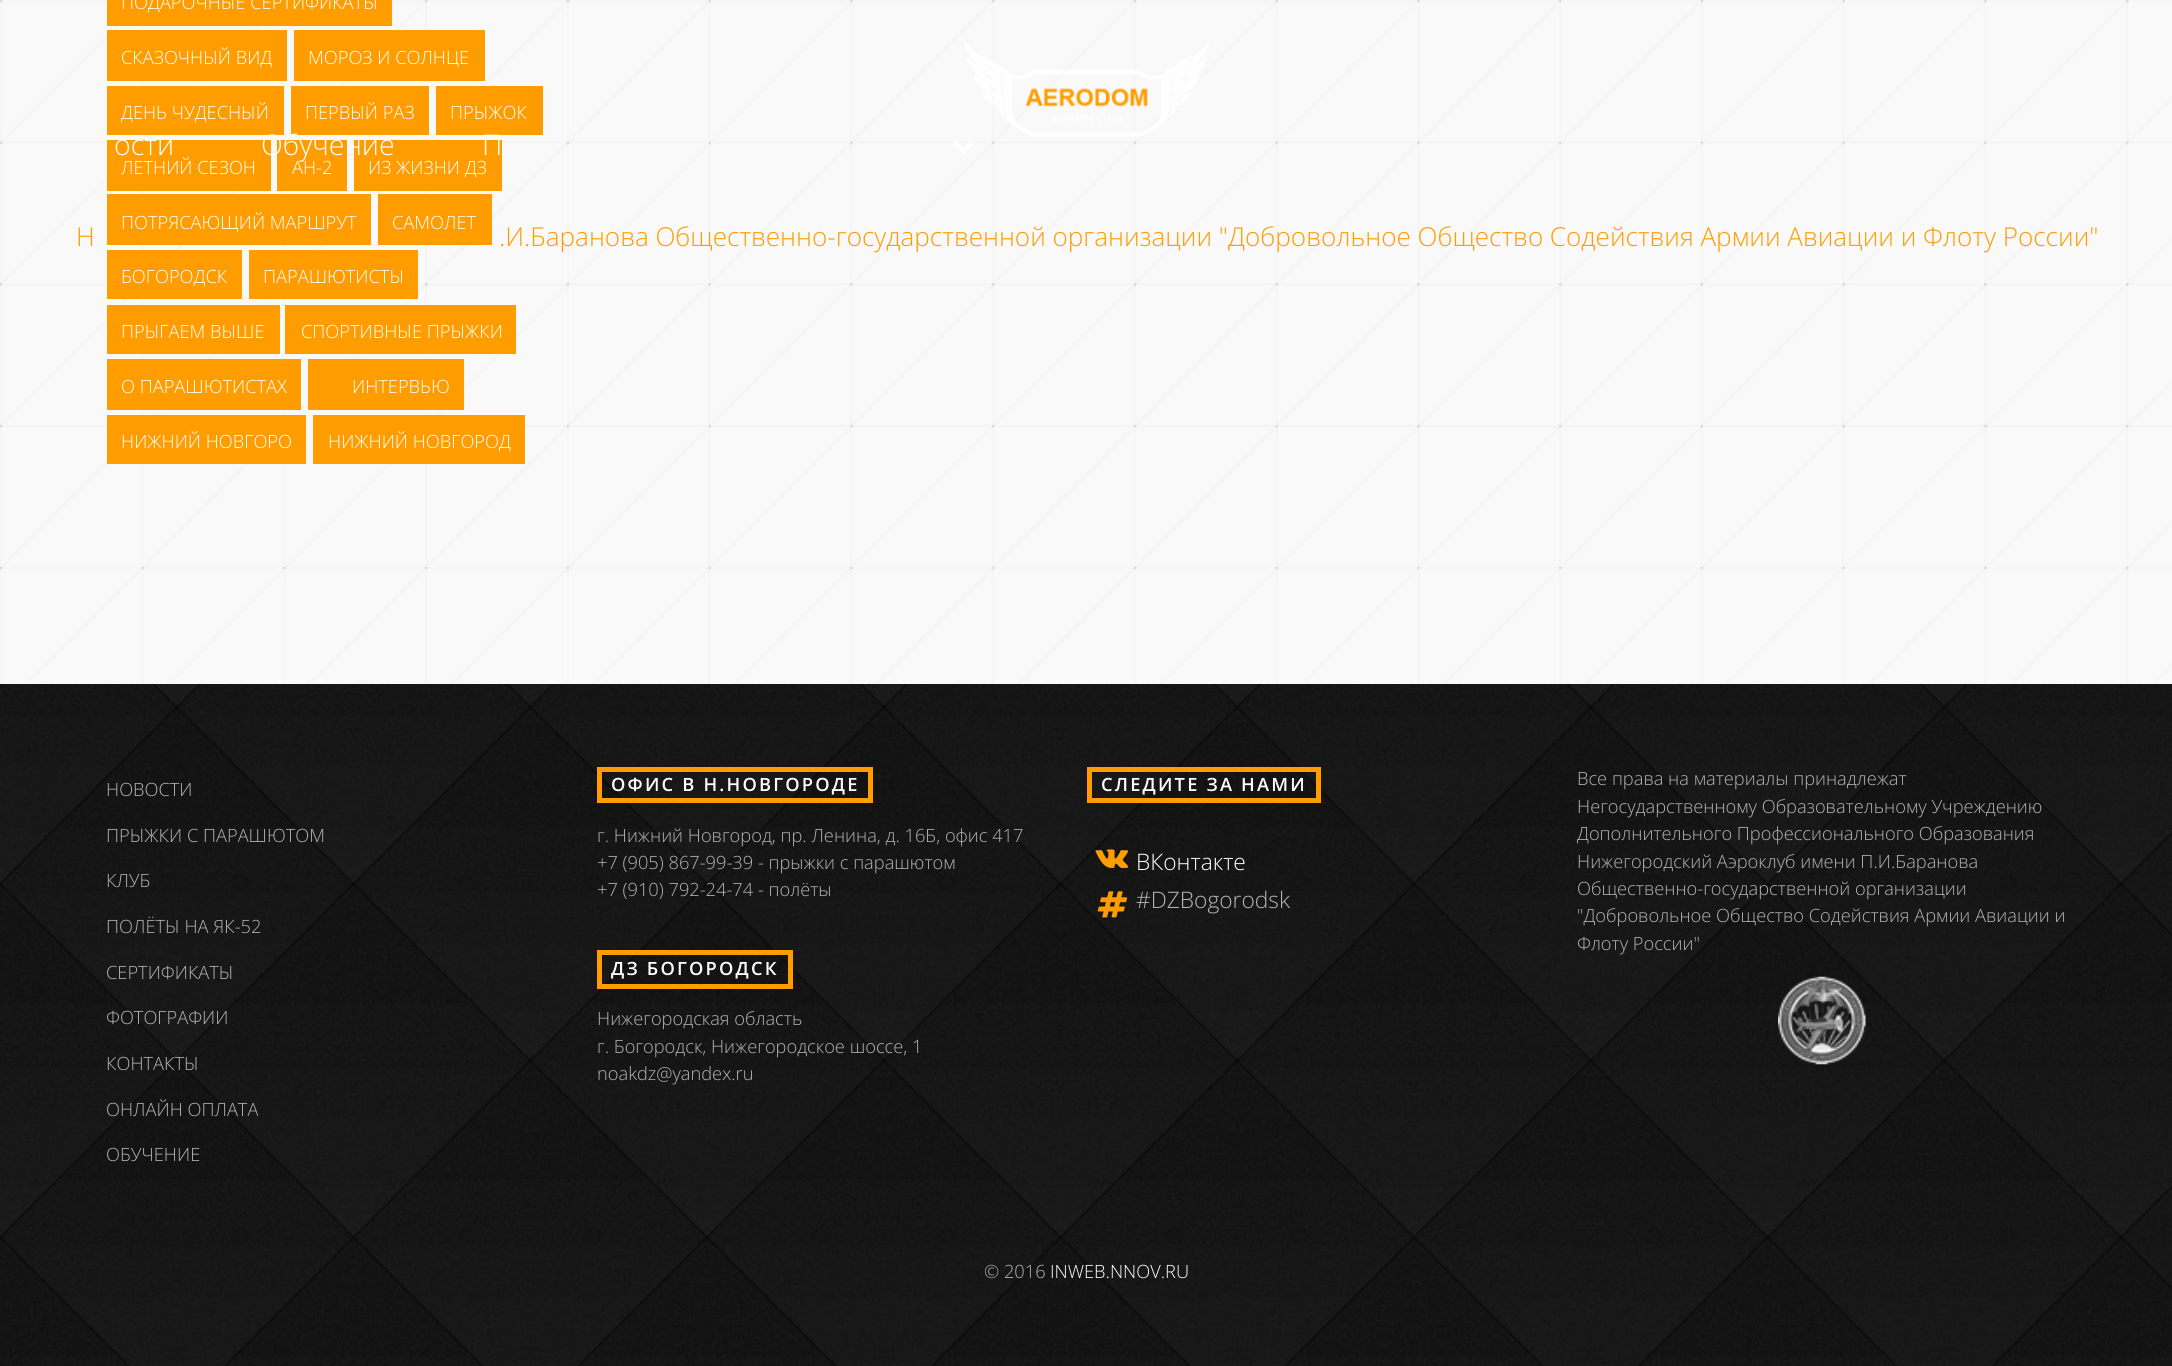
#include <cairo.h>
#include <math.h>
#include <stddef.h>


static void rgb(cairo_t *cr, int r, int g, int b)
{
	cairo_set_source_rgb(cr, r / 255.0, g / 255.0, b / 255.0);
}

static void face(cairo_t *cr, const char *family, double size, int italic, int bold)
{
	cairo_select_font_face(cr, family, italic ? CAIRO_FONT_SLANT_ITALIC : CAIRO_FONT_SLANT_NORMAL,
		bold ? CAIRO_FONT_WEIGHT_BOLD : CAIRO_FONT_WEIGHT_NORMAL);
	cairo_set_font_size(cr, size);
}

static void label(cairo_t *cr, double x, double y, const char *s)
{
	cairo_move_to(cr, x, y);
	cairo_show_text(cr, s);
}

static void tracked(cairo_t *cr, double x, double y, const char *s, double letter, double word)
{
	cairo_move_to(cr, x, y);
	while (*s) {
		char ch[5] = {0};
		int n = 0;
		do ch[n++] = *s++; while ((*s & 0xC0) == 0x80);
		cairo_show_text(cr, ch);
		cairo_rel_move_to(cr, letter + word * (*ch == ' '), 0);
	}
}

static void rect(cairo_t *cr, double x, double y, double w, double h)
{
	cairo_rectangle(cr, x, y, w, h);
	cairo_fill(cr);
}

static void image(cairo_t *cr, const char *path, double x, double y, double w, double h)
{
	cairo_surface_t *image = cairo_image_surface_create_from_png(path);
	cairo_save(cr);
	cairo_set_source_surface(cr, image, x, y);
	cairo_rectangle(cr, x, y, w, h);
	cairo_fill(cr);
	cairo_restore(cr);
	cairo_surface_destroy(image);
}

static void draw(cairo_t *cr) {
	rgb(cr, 255, 255, 255);
	cairo_paint(cr);
	image(cr, "image0.png", 0, 0, 2172, 684);
	rgb(cr, 255, 156, 0);
	rect(cr, 107, 0, 285, 26);
	face(cr, "Open Sans Light", 18.25, 0, 0);
	rgb(cr, 255, 255, 255);
	label(cr, 121, 9, "ПОДАРОЧНЫЕ СЕРТИФИКАТЫ");
	rgb(cr, 255, 156, 0);
	rect(cr, 107, 30, 180, 51);
	rgb(cr, 255, 255, 255);
	label(cr, 121, 64, "СКАЗОЧНЫЙ ВИД");
	rgb(cr, 255, 156, 0);
	rect(cr, 294, 30, 191, 51);
	rgb(cr, 255, 255, 255);
	label(cr, 308, 64, "МОРОЗ И СОЛНЦЕ");
	rgb(cr, 255, 156, 0);
	rect(cr, 107, 86, 177, 49);
	rgb(cr, 255, 255, 255);
	label(cr, 121, 119, "ДЕНЬ ЧУДЕСНЫЙ");
	rgb(cr, 255, 156, 0);
	rect(cr, 291, 86, 138, 49);
	rgb(cr, 255, 255, 255);
	label(cr, 305, 119, "ПЕРВЫЙ РАЗ");
	rgb(cr, 255, 156, 0);
	rect(cr, 436, 86, 107, 49);
	rgb(cr, 255, 255, 255);
	label(cr, 450, 119, "ПРЫЖОК");
	rgb(cr, 255, 156, 0);
	rect(cr, 107, 140, 164, 51);
	rgb(cr, 255, 255, 255);
	label(cr, 121, 174, "ЛЕТНИЙ СЕЗОН");
	rgb(cr, 255, 156, 0);
	rect(cr, 277, 140, 70, 51);
	rgb(cr, 255, 255, 255);
	label(cr, 292, 174, "АН-2");
	rgb(cr, 255, 156, 0);
	rect(cr, 354, 140, 148, 51);
	rgb(cr, 255, 255, 255);
	label(cr, 368, 174, "ИЗ ЖИЗНИ ДЗ");
	rgb(cr, 255, 156, 0);
	rect(cr, 107, 194, 264, 51);
	rgb(cr, 255, 255, 255);
	label(cr, 121, 229, "ПОТРЯСАЮЩИЙ МАРШРУТ");
	rgb(cr, 255, 156, 0);
	rect(cr, 378, 194, 114, 51);
	rgb(cr, 255, 255, 255);
	label(cr, 392, 229, "САМОЛЕТ");
	rgb(cr, 255, 156, 0);
	rect(cr, 107, 250, 135, 49);
	rgb(cr, 255, 255, 255);
	label(cr, 121, 283, "БОГОРОДСК");
	rgb(cr, 255, 156, 0);
	rect(cr, 249, 250, 169, 49);
	rgb(cr, 255, 255, 255);
	label(cr, 263, 283, "ПАРАШЮТИСТЫ");
	rgb(cr, 255, 156, 0);
	rect(cr, 107, 305, 173, 49);
	rgb(cr, 255, 255, 255);
	label(cr, 121, 338, "ПРЫГАЕМ ВЫШЕ");
	rgb(cr, 255, 156, 0);
	rect(cr, 285, 305, 231, 49);
	rgb(cr, 255, 255, 255);
	label(cr, 301, 338, "СПОРТИВНЫЕ ПРЫЖКИ");
	rgb(cr, 255, 156, 0);
	rect(cr, 107, 359, 194, 51);
	rgb(cr, 255, 255, 255);
	label(cr, 121, 393, "О ПАРАШЮТИСТАХ");
	rgb(cr, 255, 156, 0);
	rect(cr, 308, 359, 156, 51);
	rgb(cr, 255, 255, 255);
	label(cr, 352, 393, "ИНТЕРВЬЮ");
	rgb(cr, 255, 156, 0);
	rect(cr, 107, 415, 199, 49);
	rgb(cr, 255, 255, 255);
	label(cr, 121, 448, "НИЖНИЙ НОВГОРО");
	rgb(cr, 255, 156, 0);
	rect(cr, 313, 415, 212, 49);
	rgb(cr, 255, 255, 255);
	label(cr, 328, 448, "НИЖНИЙ НОВГОРОД");
	image(cr, "image1.png", 964, 41, 245, 96);
	face(cr, "Open Sans Light", 28.5, 0, 0);
	label(cr, 114, 155, "ости");
	label(cr, 261, 155, "Обучение");
	label(cr, 482, 155, "П");
	image(cr, "image2.png", 953, 141, 20, 13);
	face(cr, "Open Sans Light", 26.08, 0, 0);
	rgb(cr, 255, 156, 0);
	tracked(cr, 76, 246, "Н", 0, -0.1);
	tracked(cr, 499, 246, ".И.Баранова Общественно-государственной организации \"Добровольное Общество Содействия Армии Авиации и Флоту России\"", 0, -0.1);
	image(cr, "image3.png", 0, 684, 2172, 682);
	face(cr, "Open Sans Light", 18.25, 0, 0);
	rgb(cr, 180, 180, 180);
	label(cr, 106, 796, "НОВОСТИ");
	label(cr, 106, 842, "ПРЫЖКИ С ПАРАШЮТОМ");
	label(cr, 106, 887, "КЛУБ");
	label(cr, 106, 933, "ПОЛЁТЫ НА ЯК-52");
	label(cr, 106, 979, "СЕРТИФИКАТЫ");
	label(cr, 106, 1024, "ФОТОГРАФИИ");
	label(cr, 106, 1070, "КОНТАКТЫ");
	label(cr, 106, 1116, "ОНЛАЙН ОПЛАТА");
	label(cr, 106, 1161, "ОБУЧЕНИЕ");
	cairo_rectangle(cr, 599.5, 769.5, 271, 31);
	rgb(cr, 255, 156, 0);
	cairo_set_line_width(cr, 5);
	cairo_stroke(cr);
	face(cr, "Open Sans SemiBold", 18.25, 0, 0);
	rgb(cr, 255, 255, 255);
	tracked(cr, 611, 791, "ОФИС В Н.НОВГОРОДЕ", 2.2, 0);
	face(cr, "Open Sans Light", 18.25, 0, 0);
	rgb(cr, 180, 180, 180);
	label(cr, 597, 842, "г. Нижний Новгород, пр. Ленина, д. 16Б, офис 417");
	label(cr, 597, 869, "+7 (905) 867-99-39 - прыжки с парашютом");
	label(cr, 597, 896, "+7 (910) 792-24-74 - полёты");
	cairo_rectangle(cr, 599.5, 952.5, 191, 34);
	rgb(cr, 255, 156, 0);
	cairo_stroke(cr);
	face(cr, "Open Sans SemiBold", 18.25, 0, 0);
	rgb(cr, 255, 255, 255);
	tracked(cr, 611, 975, "ДЗ БОГОРОДСК", 2.2, 0);
	face(cr, "Open Sans Light", 18.25, 0, 0);
	rgb(cr, 180, 180, 180);
	label(cr, 597, 1025, "Нижегородская область");
	label(cr, 597, 1053, "г. Богородск, Нижегородское шоссе, 1");
	label(cr, 597, 1080, "noakdz@yandex.ru");
	cairo_rectangle(cr, 1089.5, 769.5, 229, 31);
	rgb(cr, 255, 156, 0);
	cairo_stroke(cr);
	face(cr, "Open Sans SemiBold", 18.25, 0, 0);
	rgb(cr, 255, 255, 255);
	tracked(cr, 1101, 791, "СЛЕДИТЕ ЗА НАМИ", 2.2, 0);
	image(cr, "image4.png", 1095, 849, 33, 19);
	face(cr, "Open Sans Light", 22.75, 0, 0);
	label(cr, 1136, 870, "ВКонтакте");
	image(cr, "image5.png", 1097, 891, 31, 27);
	rgb(cr, 180, 180, 180);
	label(cr, 1136, 908, "#DZBogorodsk");
	face(cr, "Open Sans Light", 18.25, 0, 0);
	label(cr, 1577, 785, "Все права на материалы принадлежат");
	label(cr, 1577, 813, "Негосударственному Образовательному Учреждению");
	label(cr, 1577, 840, "Дополнительного Профессионального Образования");
	label(cr, 1577, 868, "Нижегородский Аэроклуб имени П.И.Баранова");
	label(cr, 1577, 895, "Общественно-государственной организации");
	label(cr, 1577, 922, "\"Добровольное Общество Содействия Армии Авиации и");
	label(cr, 1577, 950, "Флоту России\"");
	image(cr, "image6.png", 1778, 976, 88, 89);
	label(cr, 984, 1278, "© 2016");
	rgb(cr, 255, 255, 255);
	label(cr, 1050, 1278, "INWEB.NNOV.RU");
}

int main(void) {
	cairo_surface_t *surface = cairo_image_surface_create(CAIRO_FORMAT_RGB24, 2172, 1366);
	cairo_t *cr = cairo_create(surface);
	cairo_font_options_t *options = cairo_font_options_create();
	cairo_font_options_set_hint_metrics(options, CAIRO_HINT_METRICS_OFF);
	cairo_font_options_set_hint_style(options, CAIRO_HINT_STYLE_NONE);
	cairo_set_font_options(cr, options);
	cairo_set_miter_limit(cr, 4);
	draw(cr);
	cairo_surface_write_to_png(surface, "render.png");
	cairo_font_options_destroy(options);
	cairo_destroy(cr);
	cairo_surface_destroy(surface);
	return 0;
}
